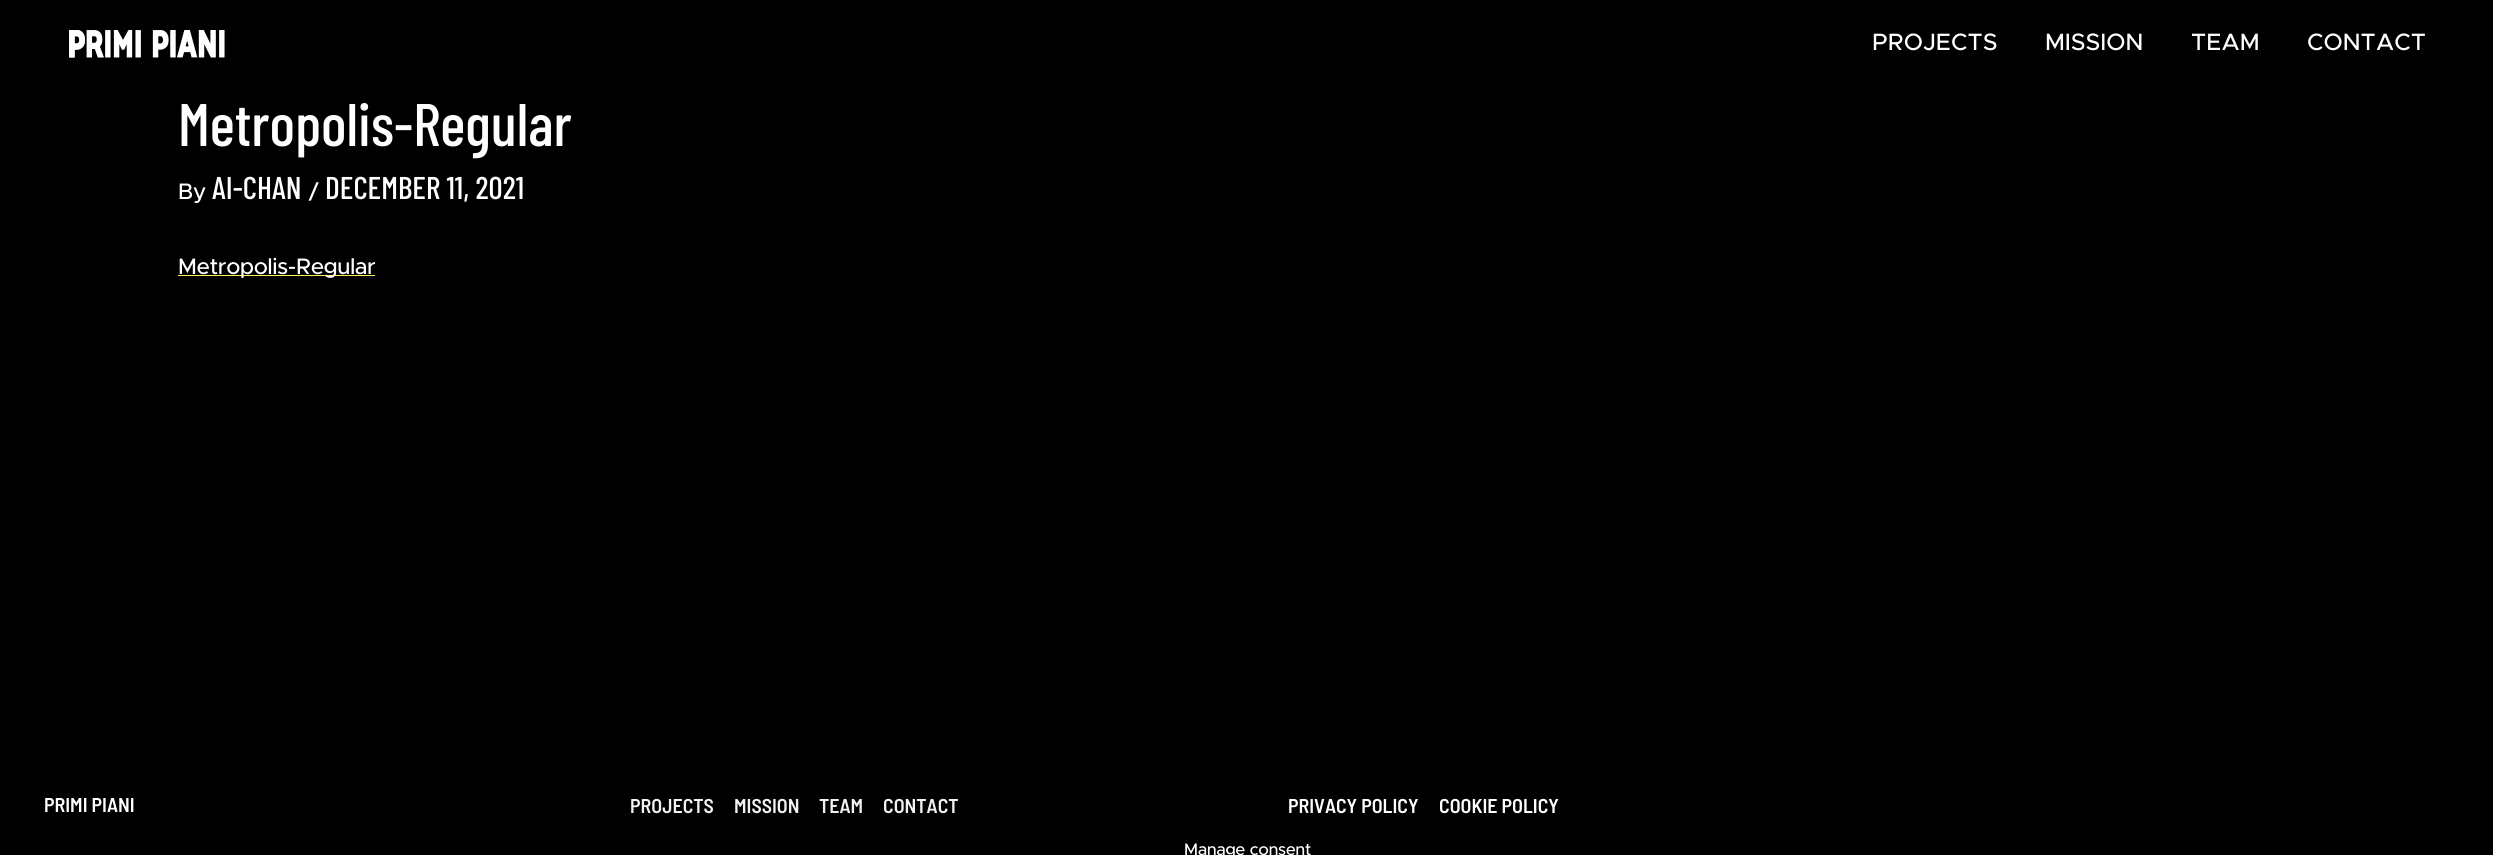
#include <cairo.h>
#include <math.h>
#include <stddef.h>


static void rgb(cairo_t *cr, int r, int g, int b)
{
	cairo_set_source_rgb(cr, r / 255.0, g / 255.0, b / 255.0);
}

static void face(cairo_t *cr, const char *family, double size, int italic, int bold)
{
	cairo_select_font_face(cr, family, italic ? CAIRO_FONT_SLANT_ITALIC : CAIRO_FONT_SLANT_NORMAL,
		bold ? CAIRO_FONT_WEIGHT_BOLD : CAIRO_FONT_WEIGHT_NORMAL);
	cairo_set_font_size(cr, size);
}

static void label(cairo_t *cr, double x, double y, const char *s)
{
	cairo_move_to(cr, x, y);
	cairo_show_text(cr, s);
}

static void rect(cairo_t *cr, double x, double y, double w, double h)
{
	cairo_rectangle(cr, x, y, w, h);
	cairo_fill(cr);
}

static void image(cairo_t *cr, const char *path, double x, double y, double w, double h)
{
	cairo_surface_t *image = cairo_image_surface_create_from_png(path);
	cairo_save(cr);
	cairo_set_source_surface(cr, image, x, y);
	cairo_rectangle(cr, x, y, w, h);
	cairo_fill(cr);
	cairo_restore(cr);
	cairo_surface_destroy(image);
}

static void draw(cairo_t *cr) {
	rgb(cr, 0, 0, 0);
	cairo_paint(cr);
	image(cr, "image0.png", 69, 30, 156, 28);
	face(cr, "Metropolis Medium", 23.75, 0, 0);
	rgb(cr, 255, 255, 255);
	label(cr, 1872, 50, "PROJECTS");
	label(cr, 2045, 50, "MISSION");
	label(cr, 2191, 50, "TEAM");
	label(cr, 2307, 50, "CONTACT");
	face(cr, "Barlow Condensed Medium", 60, 0, 0);
	label(cr, 178, 146, "Metropolis-Regular");
	face(cr, "Metropolis Medium", 22.5, 0, 0);
	label(cr, 178, 199, "By");
	face(cr, "Barlow Condensed Medium", 31.5, 0, 0);
	label(cr, 212, 199, "AI-CHAN");
	face(cr, "Metropolis Medium", 22.5, 0, 0);
	label(cr, 308, 199, "/");
	face(cr, "Barlow Condensed Medium", 31.5, 0, 0);
	label(cr, 325, 199, "DECEMBER 11, 2021");
	rgb(cr, 255, 243, 80);
	rect(cr, 178, 275, 197, 1);
	face(cr, "Metropolis Medium", 22.5, 0, 0);
	rgb(cr, 255, 255, 255);
	label(cr, 178, 274, "Metropolis-Regular");
	face(cr, "Barlow Semi Condensed SemiBold", 20, 0, 0);
	label(cr, 44, 812, "PRIMI PIANI");
	rgb(cr, 242, 242, 242);
	label(cr, 630, 813, "PROJECTS");
	label(cr, 734, 813, "MISSION");
	label(cr, 819, 813, "TEAM");
	label(cr, 883, 813, "CONTACT");
	rgb(cr, 255, 255, 255);
	label(cr, 1288, 813, "PRIVACY POLICY");
	label(cr, 1439, 813, "COOKIE POLICY");
	face(cr, "Metropolis Medium", 16.75, 0, 0);
	label(cr, 1184, 855, "Manage consent");
}

int main(void) {
	cairo_surface_t *surface = cairo_image_surface_create(CAIRO_FORMAT_RGB24, 2493, 855);
	cairo_t *cr = cairo_create(surface);
	cairo_font_options_t *options = cairo_font_options_create();
	cairo_font_options_set_hint_metrics(options, CAIRO_HINT_METRICS_OFF);
	cairo_font_options_set_hint_style(options, CAIRO_HINT_STYLE_NONE);
	cairo_set_font_options(cr, options);
	cairo_set_miter_limit(cr, 4);
	draw(cr);
	cairo_surface_write_to_png(surface, "render.png");
	cairo_font_options_destroy(options);
	cairo_destroy(cr);
	cairo_surface_destroy(surface);
	return 0;
}
